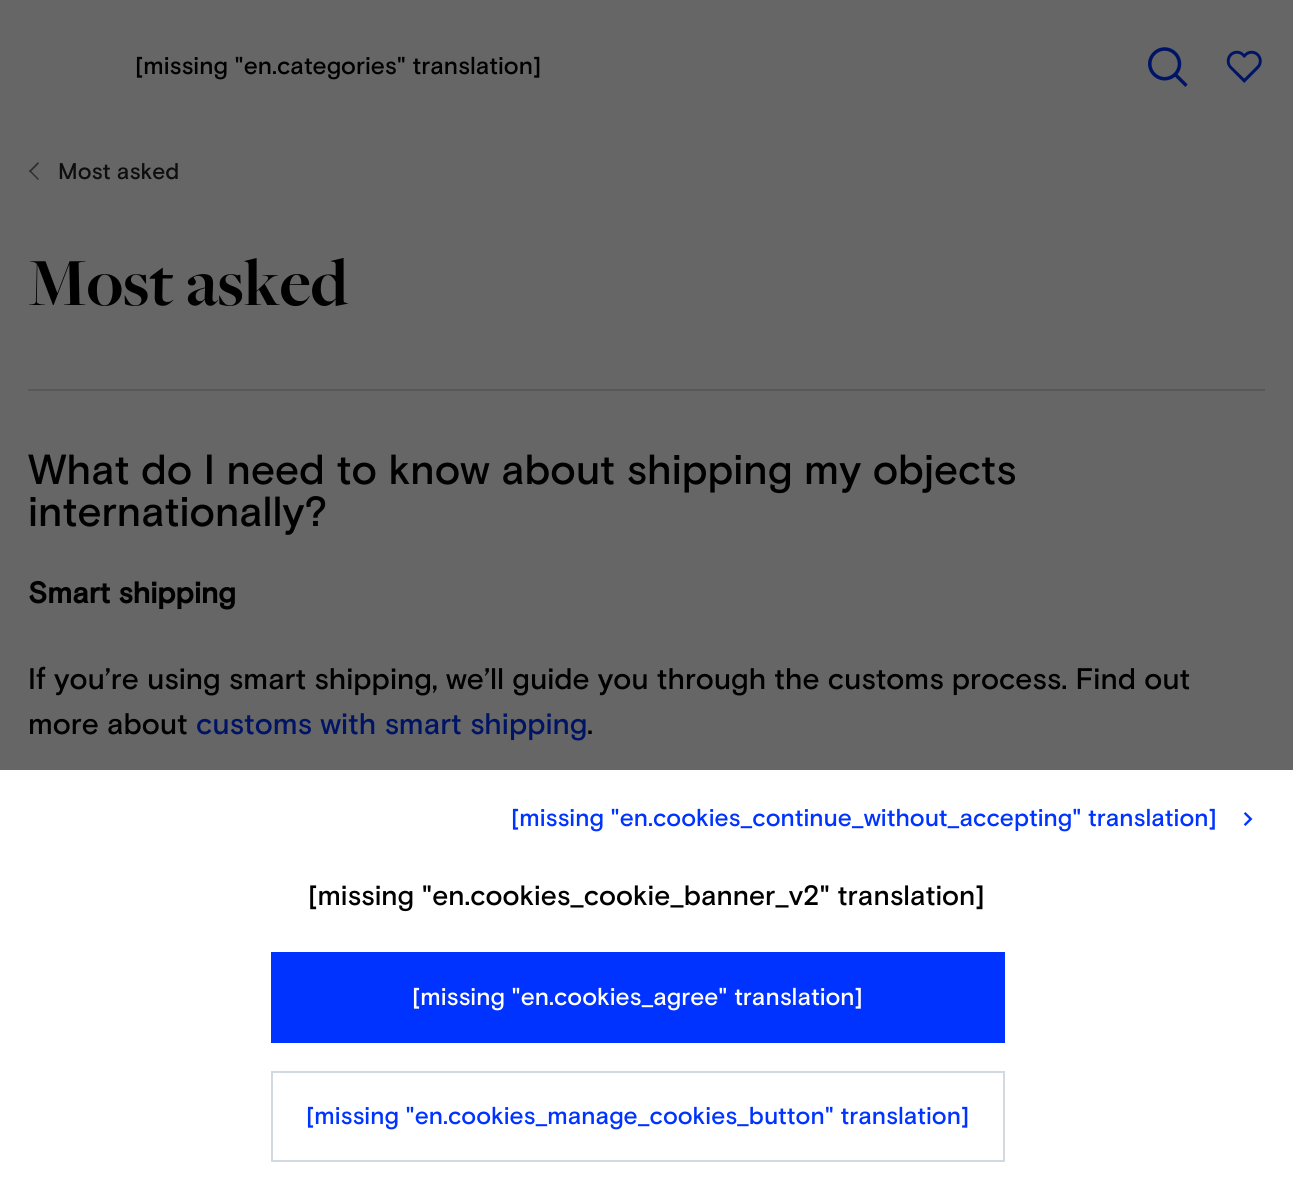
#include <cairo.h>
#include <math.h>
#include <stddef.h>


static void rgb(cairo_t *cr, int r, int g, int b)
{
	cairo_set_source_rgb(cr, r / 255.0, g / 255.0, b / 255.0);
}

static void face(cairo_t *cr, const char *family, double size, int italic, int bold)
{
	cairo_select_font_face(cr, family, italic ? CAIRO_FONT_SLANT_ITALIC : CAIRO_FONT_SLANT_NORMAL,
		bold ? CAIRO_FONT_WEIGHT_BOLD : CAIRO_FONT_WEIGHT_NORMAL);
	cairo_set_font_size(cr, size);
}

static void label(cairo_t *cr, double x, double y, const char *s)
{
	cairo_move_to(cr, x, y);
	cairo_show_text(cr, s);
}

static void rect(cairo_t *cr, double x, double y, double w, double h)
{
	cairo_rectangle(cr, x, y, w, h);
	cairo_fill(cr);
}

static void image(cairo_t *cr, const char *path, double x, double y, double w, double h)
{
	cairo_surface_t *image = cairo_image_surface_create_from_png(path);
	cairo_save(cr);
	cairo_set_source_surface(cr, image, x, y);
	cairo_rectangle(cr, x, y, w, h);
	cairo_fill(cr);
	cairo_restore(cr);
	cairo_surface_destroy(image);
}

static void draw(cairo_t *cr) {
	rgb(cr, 102, 102, 102);
	cairo_paint(cr);
	face(cr, "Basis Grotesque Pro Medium", 24.5, 0, 0);
	rgb(cr, 0, 0, 0);
	label(cr, 135, 74, "[missing \"en.categories\" translation]");
	image(cr, "image0.png", 1148, 47, 40, 40);
	image(cr, "image1.png", 1226, 50, 36, 33);
	rgb(cr, 46, 46, 46);
	cairo_new_path(cr);
	cairo_move_to(cr, 38, 180);
	cairo_line_to(cr, 29, 171);
	cairo_line_to(cr, 30, 170);
	cairo_line_to(cr, 39, 179);
	cairo_close_path(cr);
	cairo_fill(cr);
	cairo_new_path(cr);
	cairo_move_to(cr, 30, 172.5);
	cairo_line_to(cr, 29, 171);
	cairo_line_to(cr, 38, 162);
	cairo_line_to(cr, 39, 163.5);
	cairo_close_path(cr);
	cairo_fill(cr);
	face(cr, "Basis Grotesque Pro Medium", 22.75, 0, 0);
	rgb(cr, 14, 14, 14);
	label(cr, 58, 179, "Most asked");
	rgb(cr, 88, 88, 88);
	rect(cr, 28, 389, 1237, 2);
	face(cr, "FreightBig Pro", 70, 0, 1);
	rgb(cr, 0, 0, 0);
	label(cr, 28, 305, "Most asked");
	face(cr, "Basis Grotesque Pro Medium", 42, 0, 0);
	label(cr, 28, 484, "What do I need to know about shipping my objects");
	label(cr, 28, 526, "internationally?");
	face(cr, "Basis Grotesque Pro", 29.75, 0, 1);
	label(cr, 28, 603, "Smart shipping");
	face(cr, "Basis Grotesque Pro Medium", 29.75, 0, 0);
	label(cr, 28, 689, "If you’re using smart shipping, we’ll guide you through the customs process. Find out");
	label(cr, 28, 734, "more about");
	rgb(cr, 0, 20, 102);
	label(cr, 196, 734, "customs with smart shipping");
	rgb(cr, 0, 0, 0);
	label(cr, 587, 734, ".");
	rgb(cr, 255, 255, 255);
	rect(cr, 0, 770, 1293, 420);
	face(cr, "Basis Grotesque Pro Medium", 24.5, 0, 0);
	rgb(cr, 0, 51, 255);
	label(cr, 511, 826, "[missing \"en.cookies_continue_without_accepting\" translation]");
	image(cr, "image2.png", 1243, 812, 10, 14);
	face(cr, "Basis Grotesque Pro Medium", 28, 0, 0);
	rgb(cr, 0, 0, 0);
	label(cr, 308, 905, "[missing \"en.cookies_cookie_banner_v2\" translation]");
	rgb(cr, 0, 51, 255);
	rect(cr, 271, 952, 734, 91);
	face(cr, "Basis Grotesque Pro Medium", 24.5, 0, 0);
	rgb(cr, 255, 255, 255);
	label(cr, 412, 1005, "[missing \"en.cookies_agree\" translation]");
	cairo_rectangle(cr, 272, 1072, 732, 89);
	rgb(cr, 210, 217, 225);
	cairo_stroke(cr);
	rgb(cr, 0, 51, 255);
	label(cr, 306, 1124, "[missing \"en.cookies_manage_cookies_button\" translation]");
}

int main(void) {
	cairo_surface_t *surface = cairo_image_surface_create(CAIRO_FORMAT_RGB24, 1293, 1190);
	cairo_t *cr = cairo_create(surface);
	cairo_font_options_t *options = cairo_font_options_create();
	cairo_font_options_set_hint_metrics(options, CAIRO_HINT_METRICS_OFF);
	cairo_font_options_set_hint_style(options, CAIRO_HINT_STYLE_NONE);
	cairo_set_font_options(cr, options);
	cairo_set_miter_limit(cr, 4);
	draw(cr);
	cairo_surface_write_to_png(surface, "render.png");
	cairo_font_options_destroy(options);
	cairo_destroy(cr);
	cairo_surface_destroy(surface);
	return 0;
}
